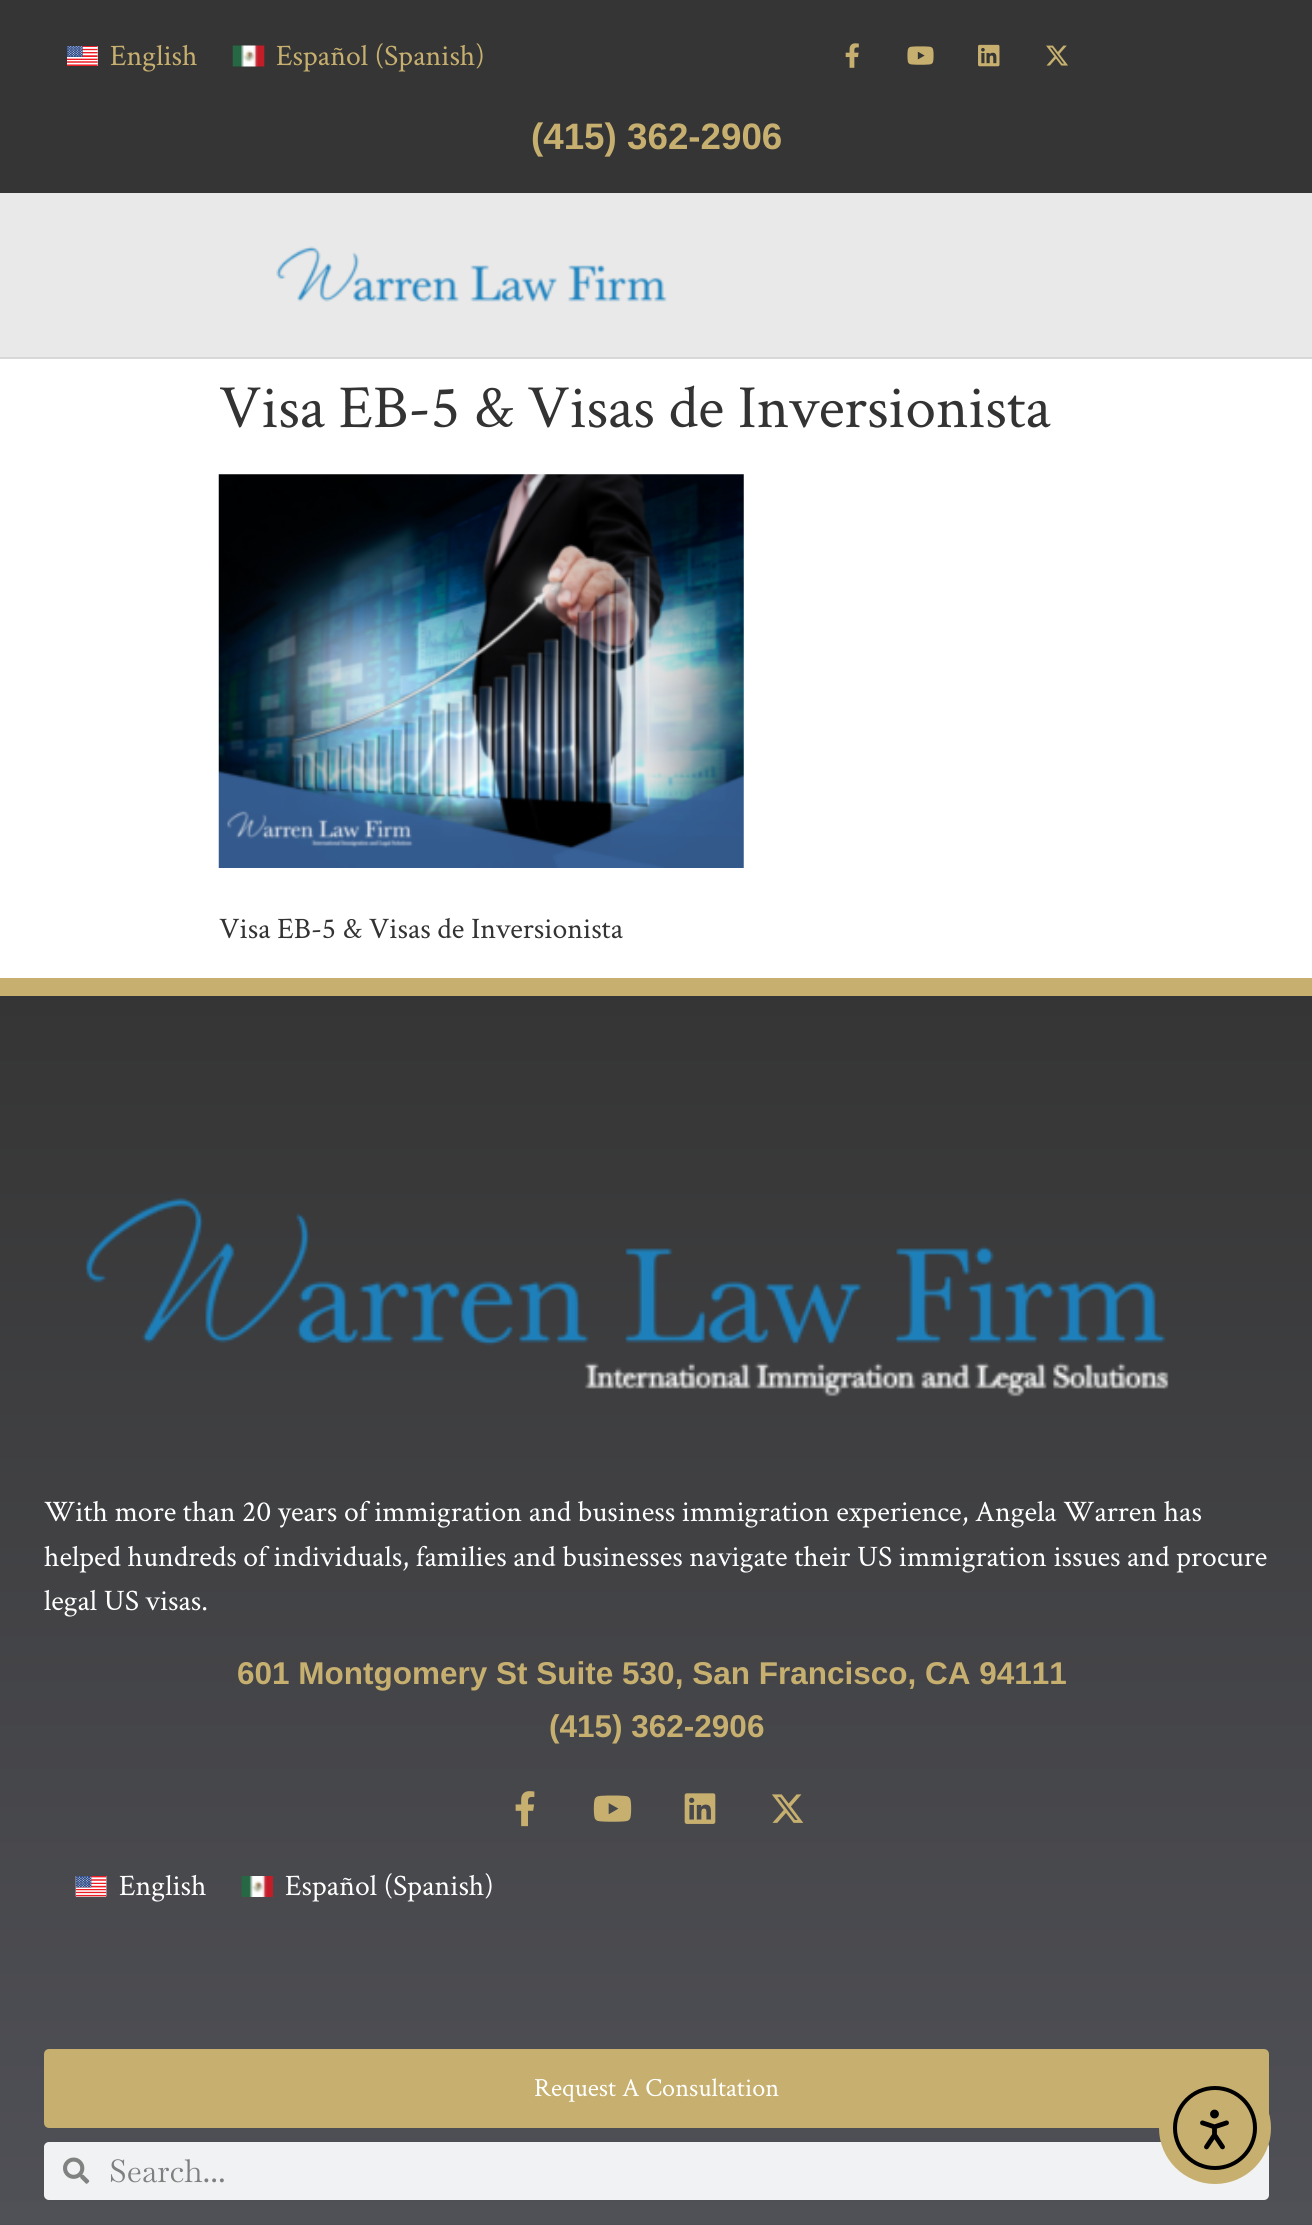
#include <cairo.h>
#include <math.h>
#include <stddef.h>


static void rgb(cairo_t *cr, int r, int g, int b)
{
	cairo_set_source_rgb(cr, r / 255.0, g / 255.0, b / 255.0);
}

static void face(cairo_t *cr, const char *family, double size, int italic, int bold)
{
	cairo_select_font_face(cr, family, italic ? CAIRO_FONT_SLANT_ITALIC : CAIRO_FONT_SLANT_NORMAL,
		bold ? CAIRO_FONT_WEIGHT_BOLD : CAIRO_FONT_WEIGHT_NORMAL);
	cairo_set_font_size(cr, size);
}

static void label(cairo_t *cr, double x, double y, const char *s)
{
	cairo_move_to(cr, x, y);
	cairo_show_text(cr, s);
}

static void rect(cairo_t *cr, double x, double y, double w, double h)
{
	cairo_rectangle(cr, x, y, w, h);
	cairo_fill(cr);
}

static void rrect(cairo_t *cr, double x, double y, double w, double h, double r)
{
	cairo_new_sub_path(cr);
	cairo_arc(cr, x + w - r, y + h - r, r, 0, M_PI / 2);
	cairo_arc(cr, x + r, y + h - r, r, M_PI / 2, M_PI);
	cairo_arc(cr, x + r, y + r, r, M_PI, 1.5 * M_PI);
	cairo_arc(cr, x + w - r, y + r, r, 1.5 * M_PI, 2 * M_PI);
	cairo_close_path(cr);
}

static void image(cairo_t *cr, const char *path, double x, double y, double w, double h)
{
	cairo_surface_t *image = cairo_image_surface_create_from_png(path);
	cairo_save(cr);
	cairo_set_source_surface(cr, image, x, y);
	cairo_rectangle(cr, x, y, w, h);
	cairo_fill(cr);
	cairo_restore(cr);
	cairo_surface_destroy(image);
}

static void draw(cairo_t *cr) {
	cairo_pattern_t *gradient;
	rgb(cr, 255, 255, 255);
	cairo_paint(cr);
	rgb(cr, 53, 53, 53);
	rect(cr, 0, 0, 1312, 193);
	image(cr, "image0.png", 67, 46, 31, 20);
	face(cr, "Crimson Text", 29.75, 0, 0);
	rgb(cr, 199, 176, 111);
	label(cr, 110, 65, "English");
	image(cr, "image1.png", 232, 45, 33, 22);
	label(cr, 276, 65, "Español (Spanish)");
	image(cr, "image2.png", 845, 43, 14, 25);
	image(cr, "image3.png", 907, 46, 27, 19);
	image(cr, "image4.png", 978, 44, 22, 23);
	image(cr, "image5.png", 1046, 45, 22, 21);
	face(cr, "Liberation Sans", 36.75, 0, 1);
	label(cr, 531, 149, "(415) 362-2906");
	rgb(cr, 233, 233, 233);
	rect(cr, 0, 193, 1312, 164);
	rgb(cr, 216, 216, 216);
	rect(cr, 0, 357, 1312, 2);
	image(cr, "image6.png", 276, 246, 391, 56);
	face(cr, "Crimson Text", 61.25, 0, 0);
	rgb(cr, 51, 51, 51);
	label(cr, 219, 427, "Visa EB-5 & Visas de Inversionista");
	image(cr, "image7.png", 218, 474, 526, 394);
	face(cr, "Crimson Text", 29.75, 0, 0);
	label(cr, 219, 938, "Visa EB-5 & Visas de Inversionista");
	gradient = cairo_pattern_create_linear(656, 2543, 656, 996);
	cairo_pattern_add_color_stop_rgba(gradient, 0, 0.341, 0.345, 0.376, 1);
	cairo_pattern_add_color_stop_rgba(gradient, 1, 0.208, 0.208, 0.208, 1);
	cairo_set_source(cr, gradient);
	cairo_pattern_destroy(gradient);
	rect(cr, 0, 996, 1312, 1229);
	rgb(cr, 199, 176, 111);
	rect(cr, 0, 978, 1312, 18);
	image(cr, "image8.png", 84, 1197, 1085, 200);
	rgb(cr, 255, 255, 255);
	label(cr, 44, 1521, "With more than 20 years of immigration and business immigration experience, Angela Warren has");
	label(cr, 44, 1566, "helped hundreds of individuals, families and businesses navigate their US immigration issues and procure");
	label(cr, 44, 1610, "legal US visas.");
	face(cr, "Liberation Sans", 31.5, 0, 1);
	rgb(cr, 199, 176, 111);
	label(cr, 237, 1684, "601 Montgomery St Suite 530, San Francisco, CA 94111");
	label(cr, 549, 1737, "(415) 362-2906");
	image(cr, "image9.png", 515, 1791, 20, 36);
	image(cr, "image10.png", 593, 1795, 39, 27);
	image(cr, "image11.png", 684, 1793, 32, 31);
	image(cr, "image12.png", 772, 1794, 32, 29);
	image(cr, "image13.png", 75, 1876, 32, 21);
	face(cr, "Crimson Text", 29.75, 0, 0);
	rgb(cr, 255, 255, 255);
	label(cr, 119, 1895, "English");
	image(cr, "image14.png", 241, 1876, 32, 21);
	label(cr, 285, 1895, "Español (Spanish)");
	rgb(cr, 199, 176, 111);
	rrect(cr, 46.5, 2051.5, 1220, 74, 2.5);
	cairo_fill_preserve(cr);
	cairo_set_line_width(cr, 5);
	cairo_stroke(cr);
	face(cr, "Crimson Text", 26.25, 0, 0);
	rgb(cr, 255, 255, 255);
	label(cr, 534, 2096, "Request A Consultation");
	rgb(cr, 241, 242, 243);
	rrect(cr, 44, 2142, 1225, 58, 5);
	cairo_fill(cr);
	image(cr, "image15.png", 63, 2157, 27, 27);
	face(cr, "Baskervville", 31.5, 0, 0);
	rgb(cr, 127, 127, 128);
	label(cr, 109, 2182, "Search...");
	rgb(cr, 199, 176, 111);
	cairo_new_path(cr);
	cairo_arc(cr, 1215, 2128, 56, 0, 2 * M_PI);
	cairo_fill(cr);
	cairo_arc(cr, 1215, 2128, 40, 0, 2 * M_PI);
	rgb(cr, 0, 0, 0);
	cairo_set_line_width(cr, 4);
	cairo_stroke(cr);
	image(cr, "image16.png", 1200, 2109, 29, 41);
}

int main(void) {
	cairo_surface_t *surface = cairo_image_surface_create(CAIRO_FORMAT_RGB24, 1312, 2225);
	cairo_t *cr = cairo_create(surface);
	cairo_font_options_t *options = cairo_font_options_create();
	cairo_font_options_set_hint_metrics(options, CAIRO_HINT_METRICS_OFF);
	cairo_font_options_set_hint_style(options, CAIRO_HINT_STYLE_NONE);
	cairo_set_font_options(cr, options);
	cairo_set_miter_limit(cr, 4);
	draw(cr);
	cairo_surface_write_to_png(surface, "render.png");
	cairo_font_options_destroy(options);
	cairo_destroy(cr);
	cairo_surface_destroy(surface);
	return 0;
}
